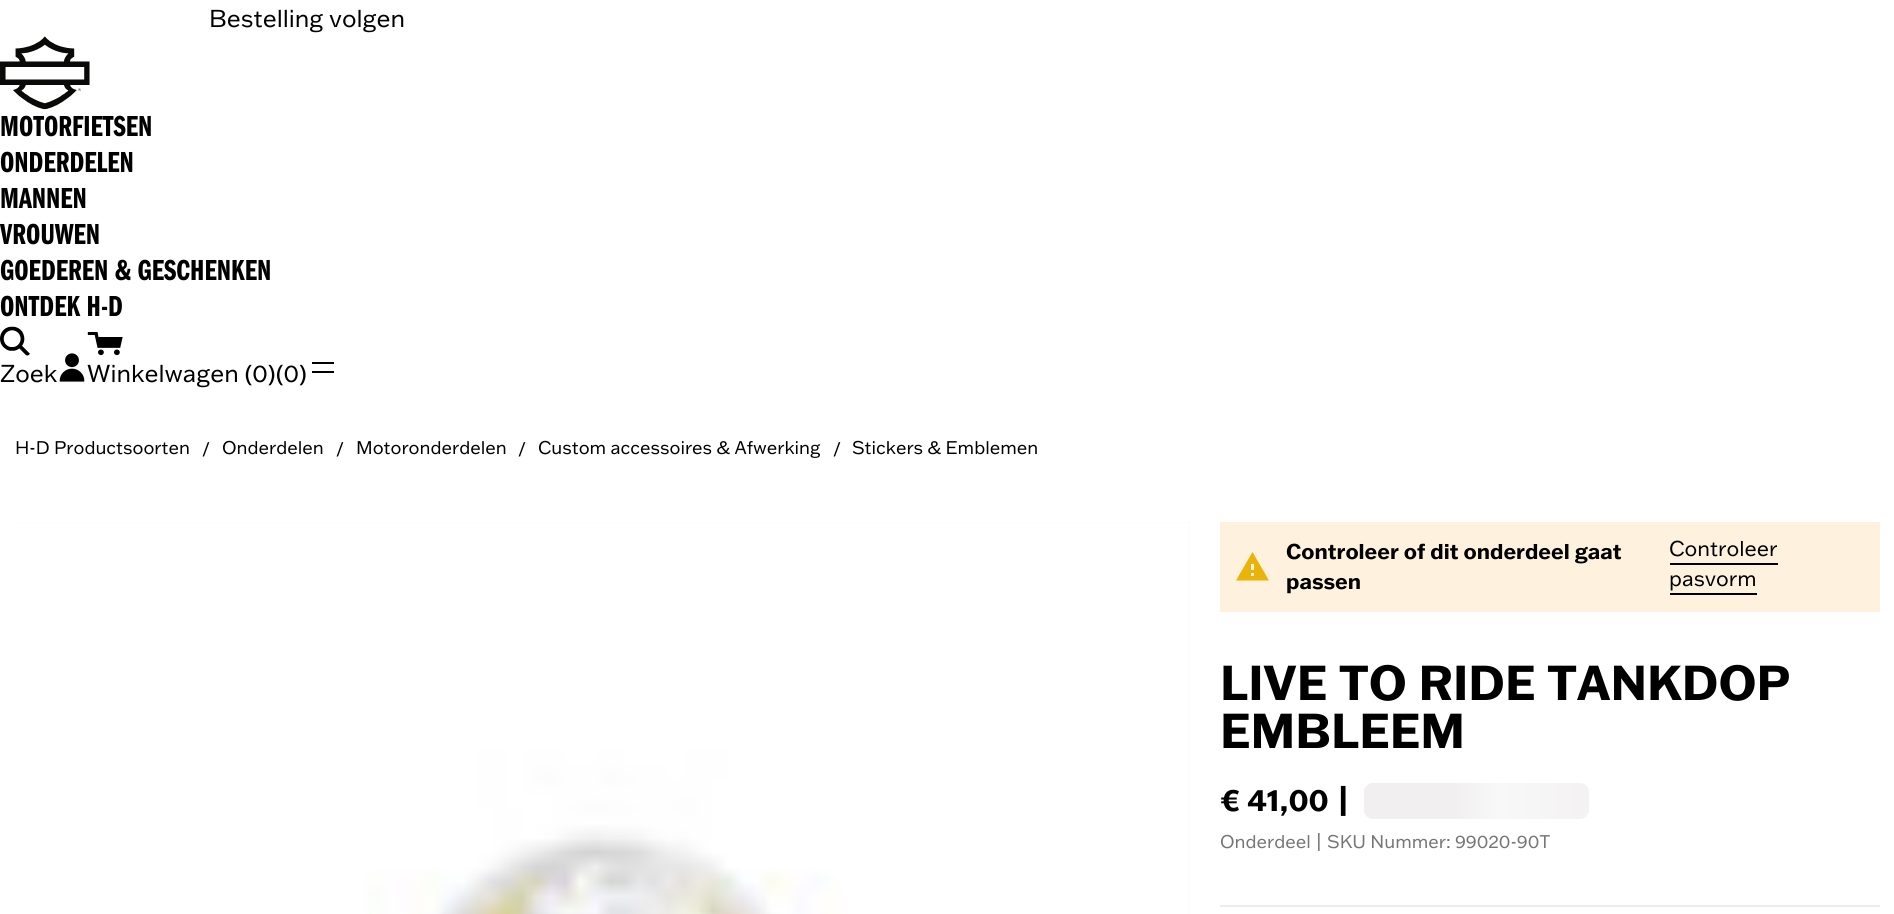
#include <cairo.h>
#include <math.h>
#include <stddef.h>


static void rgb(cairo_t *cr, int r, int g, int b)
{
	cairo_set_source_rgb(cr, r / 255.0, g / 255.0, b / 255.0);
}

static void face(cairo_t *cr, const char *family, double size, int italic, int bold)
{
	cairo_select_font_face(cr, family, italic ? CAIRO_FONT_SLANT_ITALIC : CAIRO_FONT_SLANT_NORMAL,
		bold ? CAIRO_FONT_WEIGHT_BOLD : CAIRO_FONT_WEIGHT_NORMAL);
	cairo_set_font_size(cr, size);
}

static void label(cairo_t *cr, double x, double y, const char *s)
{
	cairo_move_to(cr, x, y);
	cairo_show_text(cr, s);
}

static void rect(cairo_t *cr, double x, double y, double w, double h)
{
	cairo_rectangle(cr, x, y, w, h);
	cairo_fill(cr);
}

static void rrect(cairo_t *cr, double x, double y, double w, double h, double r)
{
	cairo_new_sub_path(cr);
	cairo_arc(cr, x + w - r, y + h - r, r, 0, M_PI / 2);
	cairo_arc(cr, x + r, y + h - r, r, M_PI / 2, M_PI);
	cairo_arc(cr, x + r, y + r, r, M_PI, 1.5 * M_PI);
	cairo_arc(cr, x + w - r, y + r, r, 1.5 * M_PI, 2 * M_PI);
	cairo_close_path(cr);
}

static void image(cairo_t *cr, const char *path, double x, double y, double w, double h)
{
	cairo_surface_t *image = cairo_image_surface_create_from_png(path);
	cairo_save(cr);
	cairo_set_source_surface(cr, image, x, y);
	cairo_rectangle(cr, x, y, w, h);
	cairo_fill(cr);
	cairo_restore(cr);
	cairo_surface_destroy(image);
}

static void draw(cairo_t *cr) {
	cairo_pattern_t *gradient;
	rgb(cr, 255, 255, 255);
	cairo_paint(cr);
	face(cr, "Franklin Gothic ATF", 24, 0, 0);
	rgb(cr, 0, 0, 0);
	label(cr, 209, 27, "Bestelling volgen");
	image(cr, "image0.png", 0, 36, 90, 74);
	face(cr, "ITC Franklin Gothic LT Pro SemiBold", 30, 0, 0);
	label(cr, 0, 136, "MOTORFIETSEN");
	label(cr, 0, 172, "ONDERDELEN");
	label(cr, 0, 208, "MANNEN");
	label(cr, 0, 244, "VROUWEN");
	label(cr, 0, 280, "GOEDEREN & GESCHENKEN");
	label(cr, 0, 316, "ONTDEK H-D");
	image(cr, "image1.png", 0, 326, 30, 30);
	face(cr, "Franklin Gothic ATF", 24, 0, 0);
	label(cr, 0, 382, "Zoek");
	image(cr, "image2.png", 59, 353, 26, 29);
	image(cr, "image3.png", 87, 332, 36, 24);
	label(cr, 87, 382, "Winkelwagen (0)(0)");
	image(cr, "image4.png", 312, 362, 22, 11);
	face(cr, "Franklin Gothic ATF", 18, 0, 0);
	label(cr, 15, 454, "H-D Productsoorten");
	label(cr, 202, 455, "/");
	label(cr, 222, 454, "Onderdelen");
	label(cr, 336, 455, "/");
	label(cr, 356, 454, "Motoronderdelen");
	label(cr, 518, 455, "/");
	label(cr, 538, 454, "Custom accessoires & Afwerking");
	label(cr, 833, 455, "/");
	label(cr, 852, 454, "Stickers & Emblemen");
	rgb(cr, 246, 246, 246);
	rect(cr, 15, 522, 1175, 392);
	image(cr, "image5.png", 15, 522, 1175, 392);
	rgb(cr, 254, 242, 222);
	rect(cr, 1220, 522, 660, 90);
	rgb(cr, 234, 179, 8);
	cairo_new_path(cr);
	cairo_move_to(cr, 1254, 570);
	cairo_line_to(cr, 1254, 564);
	cairo_line_to(cr, 1251, 564);
	cairo_line_to(cr, 1251, 570);
	cairo_close_path(cr);
	cairo_move_to(cr, 1254, 576);
	cairo_line_to(cr, 1254, 573);
	cairo_line_to(cr, 1251, 573);
	cairo_line_to(cr, 1251, 576);
	cairo_close_path(cr);
	cairo_move_to(cr, 1236, 580.5);
	cairo_line_to(cr, 1252.5, 552);
	cairo_line_to(cr, 1269, 580.5);
	cairo_close_path(cr);
	cairo_fill(cr);
	face(cr, "Franklin Gothic ATF", 21, 0, 1);
	rgb(cr, 0, 0, 0);
	label(cr, 1286, 559, "Controleer of dit onderdeel gaat");
	label(cr, 1286, 589, "passen");
	face(cr, "Franklin Gothic ATF", 21, 0, 0);
	label(cr, 1669, 556, "Controleer");
	rect(cr, 1670, 563, 108, 2);
	label(cr, 1669, 586, "pasvorm");
	rect(cr, 1670, 593, 87, 2);
	face(cr, "Franklin Gothic ATF", 48, 0, 1);
	label(cr, 1220, 700, "LIVE TO RIDE TANKDOP");
	label(cr, 1220, 748, "EMBLEEM");
	face(cr, "Franklin Gothic ATF", 30, 0, 1);
	label(cr, 1220, 811, "€ 41,00");
	label(cr, 1336, 811, "|");
	gradient = cairo_pattern_create_linear(1364, 801, 1814, 801);
	cairo_pattern_add_color_stop_rgba(gradient, 0.2, 0.945, 0.937, 0.937, 1);
	cairo_pattern_add_color_stop_rgba(gradient, 0.3, 0.976, 0.973, 0.973, 1);
	cairo_pattern_add_color_stop_rgba(gradient, 0.6, 0.945, 0.937, 0.937, 1);
	cairo_set_source(cr, gradient);
	cairo_pattern_destroy(gradient);
	rrect(cr, 1364, 783, 225, 36, 9);
	cairo_fill(cr);
	face(cr, "Franklin Gothic ATF", 18, 0, 0);
	rgb(cr, 117, 117, 117);
	label(cr, 1220, 848, "Onderdeel | SKU Nummer: 99020-90T");
	rgb(cr, 238, 236, 235);
	rect(cr, 1220, 905, 660, 2);
}

int main(void) {
	cairo_surface_t *surface = cairo_image_surface_create(CAIRO_FORMAT_RGB24, 1894, 914);
	cairo_t *cr = cairo_create(surface);
	cairo_font_options_t *options = cairo_font_options_create();
	cairo_font_options_set_hint_metrics(options, CAIRO_HINT_METRICS_OFF);
	cairo_font_options_set_hint_style(options, CAIRO_HINT_STYLE_NONE);
	cairo_set_font_options(cr, options);
	cairo_set_miter_limit(cr, 4);
	draw(cr);
	cairo_surface_write_to_png(surface, "render.png");
	cairo_font_options_destroy(options);
	cairo_destroy(cr);
	cairo_surface_destroy(surface);
	return 0;
}
